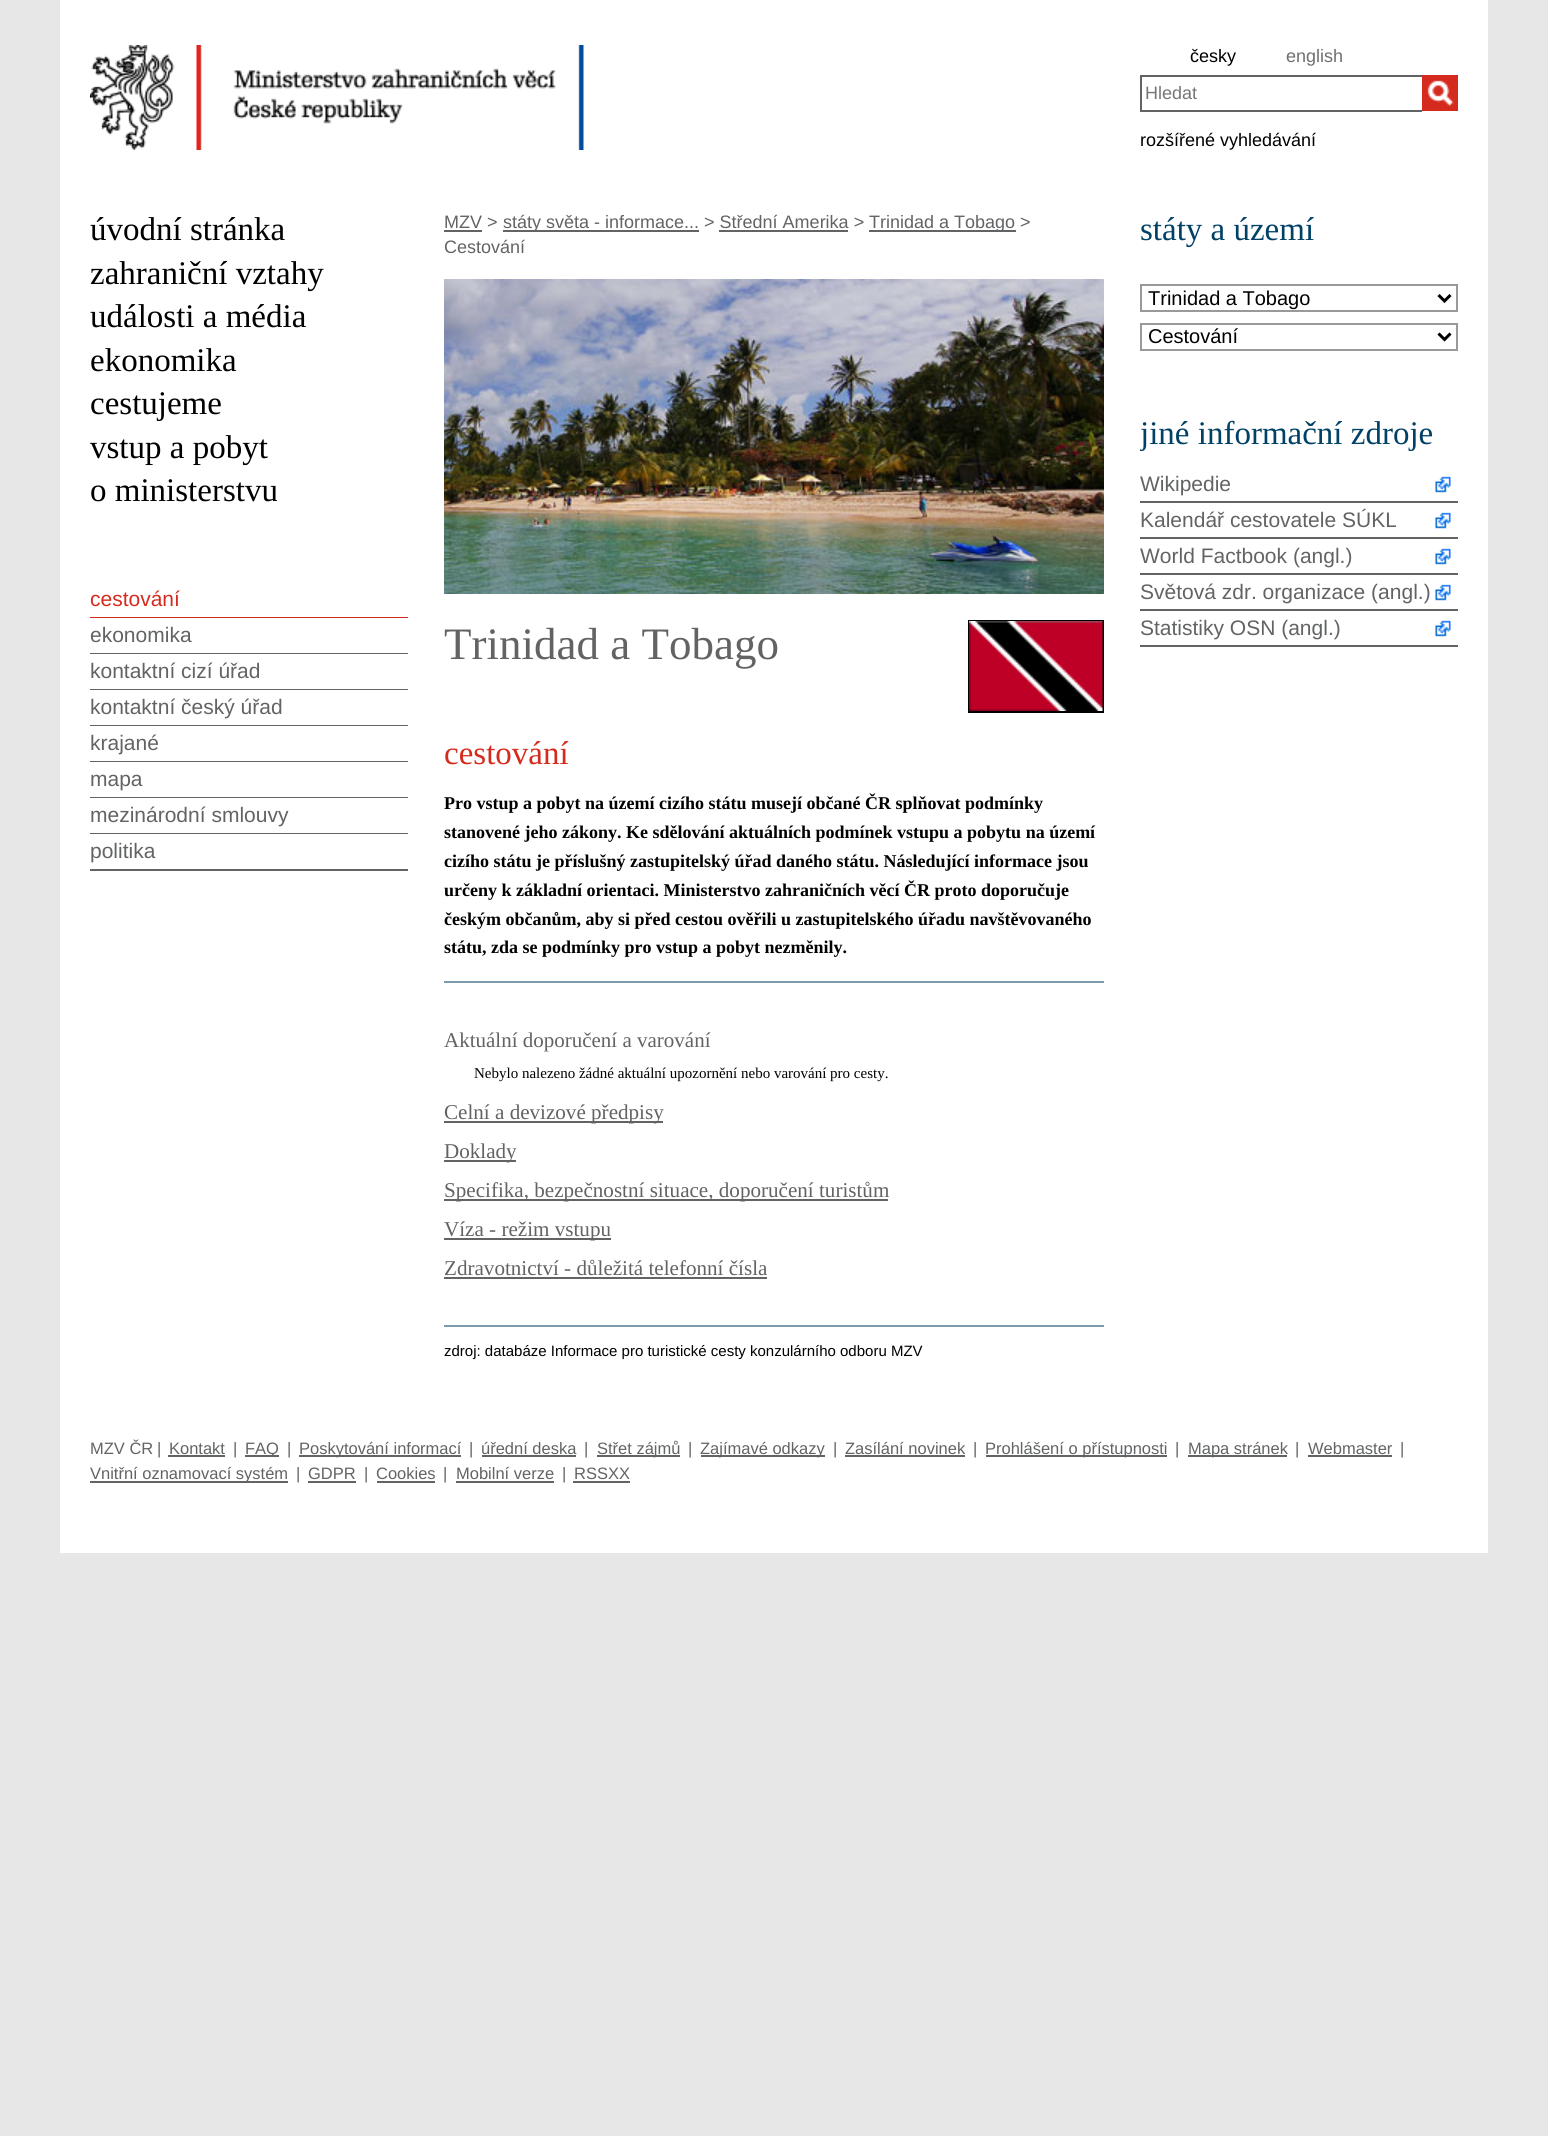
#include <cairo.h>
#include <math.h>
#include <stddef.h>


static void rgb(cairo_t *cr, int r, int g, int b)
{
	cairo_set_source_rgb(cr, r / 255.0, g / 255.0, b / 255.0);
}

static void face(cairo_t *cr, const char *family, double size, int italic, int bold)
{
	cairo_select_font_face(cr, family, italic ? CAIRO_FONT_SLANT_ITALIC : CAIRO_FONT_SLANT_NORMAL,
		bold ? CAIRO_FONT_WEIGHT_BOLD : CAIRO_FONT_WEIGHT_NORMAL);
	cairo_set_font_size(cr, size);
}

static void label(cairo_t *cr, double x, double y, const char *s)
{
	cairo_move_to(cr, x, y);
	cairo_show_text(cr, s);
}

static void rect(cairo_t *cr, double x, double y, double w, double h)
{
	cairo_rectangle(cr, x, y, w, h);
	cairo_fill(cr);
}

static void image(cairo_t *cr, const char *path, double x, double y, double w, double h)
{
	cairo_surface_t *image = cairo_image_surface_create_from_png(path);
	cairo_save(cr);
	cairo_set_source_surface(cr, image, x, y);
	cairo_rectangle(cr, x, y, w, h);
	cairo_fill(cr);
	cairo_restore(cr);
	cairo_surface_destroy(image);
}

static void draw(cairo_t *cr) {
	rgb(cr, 231, 231, 231);
	cairo_paint(cr);
	rgb(cr, 255, 255, 255);
	rect(cr, 60, 0, 1428, 1553);
	image(cr, "image0.png", 90, 45, 494, 105);
	face(cr, "Liberation Sans", 18, 0, 0);
	rgb(cr, 0, 0, 0);
	label(cr, 1190, 62, "česky");
	rgb(cr, 109, 111, 114);
	label(cr, 1286, 62, "english");
	rgb(cr, 97, 99, 101);
	rect(cr, 1140, 75, 282, 2);
	rect(cr, 1140, 110, 282, 2);
	rect(cr, 1140, 75, 2, 36);
	rgb(cr, 117, 117, 117);
	label(cr, 1145, 99, "Hledat");
	image(cr, "image1.png", 1422, 75, 36, 36);
	rgb(cr, 0, 0, 0);
	label(cr, 1140, 146, "rozšířené vyhledávání");
	face(cr, "Liberation Serif", 33, 0, 0);
	label(cr, 90, 240, "úvodní stránka");
	label(cr, 90, 284, "zahraniční vztahy");
	label(cr, 90, 327, "události a média");
	label(cr, 90, 371, "ekonomika");
	label(cr, 90, 414, "cestujeme");
	label(cr, 90, 458, "vstup a pobyt");
	label(cr, 90, 501, "o ministerstvu");
	face(cr, "Liberation Sans", 18, 0, 0);
	rgb(cr, 97, 99, 101);
	label(cr, 444, 228, "MZV >");
	rect(cr, 444, 230, 38, 2);
	rect(cr, 503, 230, 196, 2);
	label(cr, 503, 228, "státy světa - informace... > Střední Amerika >");
	rect(cr, 869, 230, 147, 2);
	label(cr, 869, 228, "Trinidad a Tobago >");
	rect(cr, 719, 230, 129, 2);
	label(cr, 444, 253, "Cestování");
	image(cr, "image2.png", 444, 279, 660, 315);
	face(cr, "Liberation Serif", 45, 0, 0);
	label(cr, 444, 659, "Trinidad a Tobago");
	cairo_rectangle(cr, 969, 621, 134, 91);
	rgb(cr, 0, 0, 0);
	cairo_stroke(cr);
	image(cr, "image3.png", 969, 621, 134, 90);
	face(cr, "Liberation Serif", 33, 0, 0);
	rgb(cr, 213, 43, 30);
	label(cr, 444, 764, "cestování");
	face(cr, "Liberation Serif", 18, 0, 1);
	rgb(cr, 0, 0, 0);
	label(cr, 444, 809, "Pro vstup a pobyt na území cizího státu musejí občané ČR splňovat podmínky");
	label(cr, 444, 838, "stanovené jeho zákony. Ke sdělování aktuálních podmínek vstupu a pobytu na území");
	label(cr, 444, 867, "cizího státu je příslušný zastupitelský úřad daného státu. Následující informace jsou");
	label(cr, 444, 896, "určeny k základní orientaci. Ministerstvo zahraničních věcí ČR proto doporučuje");
	label(cr, 444, 925, "českým občanům, aby si před cestou ověřili u zastupitelského úřadu navštěvovaného");
	label(cr, 444, 953, "státu, zda se podmínky pro vstup a pobyt nezměnily.");
	rgb(cr, 125, 154, 170);
	rect(cr, 444, 981, 660, 2);
	face(cr, "Liberation Serif", 21, 0, 0);
	rgb(cr, 97, 99, 101);
	label(cr, 444, 1047, "Aktuální doporučení a varování");
	face(cr, "Liberation Serif", 15, 0, 0);
	rgb(cr, 0, 0, 0);
	label(cr, 474, 1078, "Nebylo nalezeno žádné aktuální upozornění nebo varování pro cesty.");
	rgb(cr, 97, 99, 101);
	rect(cr, 444, 1121, 219, 2);
	face(cr, "Liberation Serif", 21.1, 0, 0);
	label(cr, 444, 1119, "Celní a devizové předpisy");
	rect(cr, 444, 1160, 72, 2);
	label(cr, 444, 1158, "Doklady");
	rect(cr, 444, 1199, 444, 2);
	label(cr, 444, 1197, "Specifika, bezpečnostní situace, doporučení turistům");
	rect(cr, 444, 1238, 167, 2);
	label(cr, 444, 1236, "Víza - režim vstupu");
	label(cr, 444, 1275, "Zdravotnictví - důležitá telefonní čísla");
	rect(cr, 444, 1277, 323, 2);
	rgb(cr, 125, 154, 170);
	rect(cr, 444, 1325, 660, 2);
	face(cr, "Liberation Sans", 15, 0, 0);
	rgb(cr, 0, 0, 0);
	label(cr, 444, 1356, "zdroj: databáze Informace pro turistické cesty konzulárního odboru MZV");
	rgb(cr, 213, 43, 30);
	rect(cr, 90, 617, 318, 1);
	face(cr, "Liberation Sans", 21, 0, 0);
	label(cr, 90, 606, "cestování");
	rgb(cr, 97, 99, 101);
	rect(cr, 90, 653, 318, 1);
	label(cr, 90, 642, "ekonomika");
	rect(cr, 90, 689, 318, 1);
	label(cr, 90, 678, "kontaktní cizí úřad");
	rect(cr, 90, 725, 318, 1);
	label(cr, 90, 714, "kontaktní český úřad");
	rect(cr, 90, 761, 318, 1);
	label(cr, 90, 750, "krajané");
	rect(cr, 90, 797, 318, 1);
	label(cr, 90, 786, "mapa");
	rect(cr, 90, 833, 318, 1);
	label(cr, 90, 822, "mezinárodní smlouvy");
	rect(cr, 90, 869, 318, 2);
	label(cr, 90, 858, "politika");
	face(cr, "Liberation Serif", 33, 0, 0);
	rgb(cr, 0, 65, 101);
	label(cr, 1140, 240, "státy a území");
	cairo_rectangle(cr, 1141, 285, 316, 26);
	rgb(cr, 153, 153, 153);
	cairo_stroke(cr);
	cairo_new_path(cr);
	cairo_move_to(cr, 1438.5, 295);
	cairo_line_to(cr, 1444.5, 301);
	cairo_line_to(cr, 1450.5, 295);
	rgb(cr, 0, 0, 0);
	cairo_set_line_width(cr, 3);
	cairo_stroke(cr);
	face(cr, "Liberation Sans", 20, 0, 0);
	label(cr, 1148, 305, "Trinidad a Tobago");
	cairo_rectangle(cr, 1141, 324, 316, 26);
	rgb(cr, 153, 153, 153);
	cairo_set_line_width(cr, 2);
	cairo_stroke(cr);
	cairo_new_path(cr);
	cairo_move_to(cr, 1438.5, 333.5);
	cairo_line_to(cr, 1444.5, 339.5);
	cairo_line_to(cr, 1450.5, 333.5);
	rgb(cr, 0, 0, 0);
	cairo_set_line_width(cr, 3);
	cairo_stroke(cr);
	label(cr, 1148, 343, "Cestování");
	cairo_save(cr);
	cairo_rectangle(cr, 1140, 414, 318, 233);
	cairo_clip(cr);
	face(cr, "Liberation Serif", 33, 0, 0);
	rgb(cr, 0, 65, 101);
	label(cr, 1140, 444, "jiné informační zdroje");
	cairo_restore(cr);
	image(cr, "image4.png", 1435, 476, 16, 17);
	rgb(cr, 97, 99, 101);
	rect(cr, 1140, 501, 318, 2);
	face(cr, "Liberation Sans", 21, 0, 0);
	label(cr, 1140, 491, "Wikipedie");
	image(cr, "image4.png", 1435, 512, 16, 17);
	rect(cr, 1140, 537, 318, 2);
	label(cr, 1140, 527, "Kalendář cestovatele SÚKL");
	image(cr, "image4.png", 1435, 548, 16, 17);
	rect(cr, 1140, 573, 318, 2);
	label(cr, 1140, 563, "World Factbook (angl.)");
	image(cr, "image4.png", 1435, 584, 16, 17);
	rect(cr, 1140, 609, 318, 2);
	label(cr, 1140, 599, "Světová zdr. organizace (angl.)");
	image(cr, "image4.png", 1435, 620, 16, 17);
	rect(cr, 1140, 645, 318, 2);
	label(cr, 1140, 635, "Statistiky OSN (angl.)");
	face(cr, "Liberation Sans", 16.5, 0, 0);
	label(cr, 90, 1454, "MZV ČR");
	label(cr, 157, 1454, "|");
	label(cr, 169, 1454, "Kontakt");
	rect(cr, 168, 1455, 57, 2);
	label(cr, 233, 1454, "|");
	rect(cr, 245, 1455, 34, 2);
	label(cr, 245, 1454, "FAQ");
	label(cr, 287, 1454, "|");
	rect(cr, 299, 1455, 162, 2);
	label(cr, 299, 1454, "Poskytování informací");
	label(cr, 469, 1454, "|");
	label(cr, 481, 1454, "úřední deska");
	rect(cr, 482, 1455, 94, 2);
	label(cr, 584, 1454, "|");
	rect(cr, 597, 1455, 83, 2);
	label(cr, 597, 1454, "Střet zájmů");
	label(cr, 688, 1454, "|");
	rect(cr, 701, 1455, 124, 2);
	label(cr, 700, 1454, "Zajímavé odkazy");
	label(cr, 833, 1454, "|");
	label(cr, 845, 1454, "Zasílání novinek");
	rect(cr, 845, 1455, 120, 2);
	label(cr, 973, 1454, "|");
	rect(cr, 986, 1455, 181, 2);
	label(cr, 985, 1454, "Prohlášení o přístupnosti");
	label(cr, 1175, 1454, "|");
	rect(cr, 1188, 1455, 99, 2);
	label(cr, 1188, 1454, "Mapa stránek");
	label(cr, 1295, 1454, "|");
	label(cr, 1308, 1454, "Webmaster");
	rect(cr, 1308, 1455, 84, 2);
	label(cr, 1400, 1454, "|");
	rect(cr, 90, 1481, 198, 2);
	label(cr, 90, 1479, "Vnitřní oznamovací systém");
	label(cr, 296, 1479, "|");
	label(cr, 308, 1479, "GDPR");
	rect(cr, 308, 1481, 48, 2);
	label(cr, 364, 1479, "|");
	label(cr, 376, 1479, "Cookies");
	rect(cr, 377, 1481, 58, 2);
	label(cr, 443, 1479, "|");
	label(cr, 456, 1479, "Mobilní verze");
	rect(cr, 456, 1481, 98, 2);
	label(cr, 562, 1479, "|");
	label(cr, 574, 1479, "RSSXX");
	rect(cr, 573, 1481, 57, 2);
}

int main(void) {
	cairo_surface_t *surface = cairo_image_surface_create(CAIRO_FORMAT_RGB24, 1548, 2136);
	cairo_t *cr = cairo_create(surface);
	cairo_font_options_t *options = cairo_font_options_create();
	cairo_font_options_set_hint_metrics(options, CAIRO_HINT_METRICS_OFF);
	cairo_font_options_set_hint_style(options, CAIRO_HINT_STYLE_NONE);
	cairo_set_font_options(cr, options);
	cairo_set_miter_limit(cr, 4);
	draw(cr);
	cairo_surface_write_to_png(surface, "render.png");
	cairo_font_options_destroy(options);
	cairo_destroy(cr);
	cairo_surface_destroy(surface);
	return 0;
}
